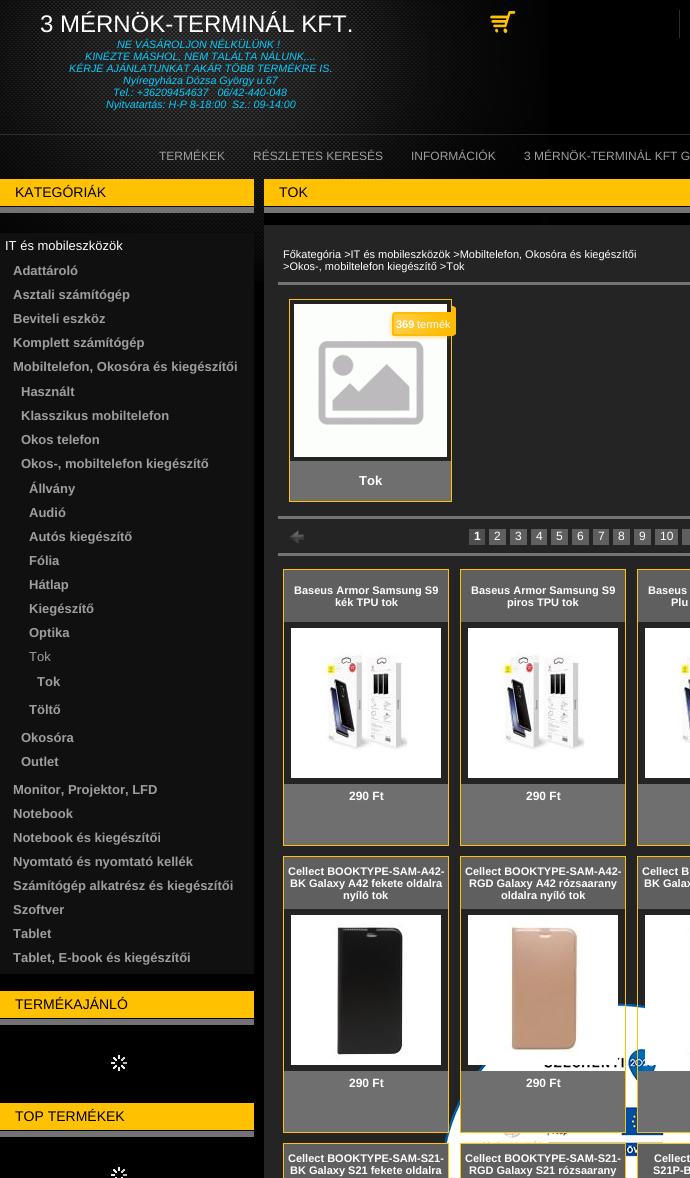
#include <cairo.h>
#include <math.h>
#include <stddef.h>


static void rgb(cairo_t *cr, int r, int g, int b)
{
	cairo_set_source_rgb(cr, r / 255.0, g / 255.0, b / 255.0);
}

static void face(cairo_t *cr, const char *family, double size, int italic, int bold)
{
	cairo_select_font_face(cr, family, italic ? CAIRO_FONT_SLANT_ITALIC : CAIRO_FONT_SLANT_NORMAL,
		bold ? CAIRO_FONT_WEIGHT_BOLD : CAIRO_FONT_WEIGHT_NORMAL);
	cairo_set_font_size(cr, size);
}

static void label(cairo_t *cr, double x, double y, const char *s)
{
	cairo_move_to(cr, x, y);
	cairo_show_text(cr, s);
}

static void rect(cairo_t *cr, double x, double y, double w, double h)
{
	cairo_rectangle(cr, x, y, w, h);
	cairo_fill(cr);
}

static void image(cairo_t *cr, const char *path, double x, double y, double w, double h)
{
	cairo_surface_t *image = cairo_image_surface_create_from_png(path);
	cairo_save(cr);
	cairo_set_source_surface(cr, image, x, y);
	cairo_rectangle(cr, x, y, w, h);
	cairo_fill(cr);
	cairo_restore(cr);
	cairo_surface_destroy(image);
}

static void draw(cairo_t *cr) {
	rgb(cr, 0, 0, 0);
	cairo_paint(cr);
	image(cr, "image0.png", 0, 0, 548, 282);
	face(cr, "Liberation Sans", 24, 0, 0);
	rgb(cr, 255, 255, 255);
	label(cr, 40, 32, "3 MÉRNÖK-TERMINÁL KFT.");
	face(cr, "Liberation Sans", 10.7, 1, 0);
	rgb(cr, 0, 204, 255);
	label(cr, 117, 48, "NE VÁSÁROLJON NÉLKÜLÜNK !");
	label(cr, 85, 60, "KINÉZTE MÁSHOL, NEM TALÁLTA NÁLUNK,...");
	label(cr, 69, 72, "KÉRJE AJÁNLATUNKAT AKÁR TÖBB TERMÉKRE IS.");
	label(cr, 123, 84, "Nyíregyháza Dózsa György u.67");
	label(cr, 113, 96, "Tel.: +36209454637   06/42-440-048");
	label(cr, 106, 108, "Nyitvatartás: H-P 8-18:00  Sz.: 09-14:00");
	rgb(cr, 44, 44, 44);
	rect(cr, 679, 10, 1, 28);
	image(cr, "image1.png", 490, 11, 26, 22);
	rect(cr, 0, 134, 690, 1);
	face(cr, "Liberation Sans", 12, 0, 0);
	rgb(cr, 158, 158, 158);
	label(cr, 159, 160, "TERMÉKEK");
	label(cr, 253, 160, "RÉSZLETES KERESÉS");
	label(cr, 411, 160, "INFORMÁCIÓK");
	label(cr, 524, 160, "3 MÉRNÖK-TERMINÁL KFT G");
	rgb(cr, 36, 36, 36);
	rect(cr, 264, 225, 426, 953);
	rgb(cr, 255, 193, 0);
	rect(cr, 0, 179, 254, 27);
	face(cr, "Liberation Sans", 14, 0, 0);
	rgb(cr, 0, 0, 0);
	label(cr, 15, 197, "KATEGÓRIÁK");
	rgb(cr, 115, 115, 115);
	rect(cr, 0, 207, 254, 6);
	rgb(cr, 16, 16, 16);
	rect(cr, 0, 233, 254, 741);
	face(cr, "Liberation Sans", 13, 0, 0);
	rgb(cr, 255, 255, 255);
	label(cr, 5, 250, "IT és mobileszközök");
	face(cr, "Liberation Sans", 13, 0, 1);
	rgb(cr, 158, 158, 158);
	label(cr, 13, 275, "Adattároló");
	label(cr, 13, 299, "Asztali számítógép");
	label(cr, 13, 323, "Beviteli eszköz");
	label(cr, 13, 347, "Komplett számítógép");
	label(cr, 13, 371, "Mobiltelefon, Okosóra és kiegészítői");
	label(cr, 21, 396, "Használt");
	label(cr, 21, 420, "Klasszikus mobiltelefon");
	label(cr, 21, 444, "Okos telefon");
	label(cr, 21, 468, "Okos-, mobiltelefon kiegészítő");
	label(cr, 29, 493, "Állvány");
	label(cr, 29, 517, "Audió");
	label(cr, 29, 541, "Autós kiegészítő");
	label(cr, 29, 565, "Fólia");
	label(cr, 29, 589, "Hátlap");
	label(cr, 29, 613, "Kiegészítő");
	label(cr, 29, 637, "Optika");
	face(cr, "Liberation Sans", 13, 0, 0);
	label(cr, 29, 661, "Tok");
	face(cr, "Liberation Sans", 13, 0, 1);
	label(cr, 37, 686, "Tok");
	label(cr, 29, 714, "Töltő");
	label(cr, 21, 742, "Okosóra");
	label(cr, 21, 766, "Outlet");
	label(cr, 13, 794, "Monitor, Projektor, LFD");
	label(cr, 13, 818, "Notebook");
	label(cr, 13, 842, "Notebook és kiegészítői");
	label(cr, 13, 866, "Nyomtató és nyomtató kellék");
	label(cr, 13, 890, "Számítógép alkatrész és kiegészítői");
	label(cr, 13, 914, "Szoftver");
	label(cr, 13, 938, "Tablet");
	label(cr, 13, 962, "Tablet, E-book és kiegészítői");
	rgb(cr, 255, 193, 0);
	rect(cr, 0, 991, 254, 27);
	face(cr, "Liberation Sans", 14, 0, 0);
	rgb(cr, 0, 0, 0);
	label(cr, 15, 1009, "TERMÉKAJÁNLÓ");
	rgb(cr, 115, 115, 115);
	rect(cr, 0, 1019, 254, 6);
	image(cr, "image2.png", 111, 1055, 16, 16);
	rgb(cr, 255, 193, 0);
	rect(cr, 0, 1103, 254, 27);
	rgb(cr, 0, 0, 0);
	label(cr, 15, 1121, "TOP TERMÉKEK");
	rgb(cr, 115, 115, 115);
	rect(cr, 0, 1131, 254, 6);
	image(cr, "image3.png", 111, 1167, 16, 11);
	rgb(cr, 255, 193, 0);
	rect(cr, 264, 179, 426, 27);
	rgb(cr, 0, 0, 0);
	label(cr, 279, 197, "TOK");
	rect(cr, 264, 206, 247, 1);
	rgb(cr, 115, 115, 115);
	rect(cr, 264, 207, 426, 6);
	rgb(cr, 0, 0, 0);
	rect(cr, 264, 213, 278, 12);
	face(cr, "Liberation Sans", 11, 0, 0);
	rgb(cr, 255, 255, 255);
	label(cr, 283, 258, "Főkategória >IT és mobileszközök >Mobiltelefon, Okosóra és kiegészítői");
	label(cr, 283, 270, ">Okos-, mobiltelefon kiegészítő >Tok");
	rgb(cr, 115, 115, 115);
	rect(cr, 278, 282, 412, 3);
	cairo_rectangle(cr, 289.5, 299.5, 162, 202);
	rgb(cr, 255, 193, 0);
	cairo_set_line_width(cr, 1);
	cairo_stroke(cr);
	image(cr, "image4.png", 294, 304, 153, 153);
	image(cr, "image5.png", 388, 306, 68, 34);
	face(cr, "Liberation Sans", 11, 0, 1);
	rgb(cr, 255, 255, 255);
	label(cr, 396, 328, "369");
	face(cr, "Liberation Sans", 11, 0, 0);
	label(cr, 417, 328, "termék");
	rgb(cr, 111, 111, 111);
	rect(cr, 290, 461, 161, 40);
	face(cr, "Liberation Sans", 13, 0, 1);
	rgb(cr, 255, 255, 255);
	label(cr, 359, 485, "Tok");
	rgb(cr, 115, 115, 115);
	rect(cr, 278, 516, 412, 3);
	image(cr, "image6.png", 289, 530, 15, 14);
	rgb(cr, 79, 79, 79);
	rect(cr, 469, 529, 16, 16);
	face(cr, "Liberation Sans", 12, 0, 1);
	rgb(cr, 255, 255, 255);
	label(cr, 474, 540, "1");
	rgb(cr, 95, 95, 95);
	rect(cr, 489, 529, 17, 16);
	face(cr, "Liberation Sans", 12, 0, 0);
	rgb(cr, 255, 255, 255);
	label(cr, 494, 540, "2");
	rgb(cr, 95, 95, 95);
	rect(cr, 510, 529, 17, 16);
	rgb(cr, 255, 255, 255);
	label(cr, 515, 540, "3");
	rgb(cr, 95, 95, 95);
	rect(cr, 531, 529, 16, 16);
	rgb(cr, 255, 255, 255);
	label(cr, 536, 540, "4");
	rgb(cr, 95, 95, 95);
	rect(cr, 551, 529, 17, 16);
	rgb(cr, 255, 255, 255);
	label(cr, 556, 540, "5");
	rgb(cr, 95, 95, 95);
	rect(cr, 572, 529, 17, 16);
	rgb(cr, 255, 255, 255);
	label(cr, 577, 540, "6");
	rgb(cr, 95, 95, 95);
	rect(cr, 593, 529, 16, 16);
	rgb(cr, 255, 255, 255);
	label(cr, 598, 540, "7");
	rgb(cr, 95, 95, 95);
	rect(cr, 613, 529, 17, 16);
	rgb(cr, 255, 255, 255);
	label(cr, 618, 540, "8");
	rgb(cr, 95, 95, 95);
	rect(cr, 634, 529, 17, 16);
	rgb(cr, 255, 255, 255);
	label(cr, 639, 540, "9");
	rgb(cr, 95, 95, 95);
	rect(cr, 655, 529, 23, 16);
	rgb(cr, 255, 255, 255);
	label(cr, 660, 540, "10");
	rgb(cr, 95, 95, 95);
	rect(cr, 682, 529, 8, 16);
	rgb(cr, 115, 115, 115);
	rect(cr, 278, 553, 412, 3);
	cairo_rectangle(cr, 283.5, 569.5, 165, 276);
	rgb(cr, 255, 193, 0);
	cairo_stroke(cr);
	rgb(cr, 95, 95, 95);
	rect(cr, 284, 570, 164, 52);
	face(cr, "Liberation Sans", 11, 0, 1);
	rgb(cr, 255, 255, 255);
	label(cr, 294, 594, "Baseus Armor Samsung S9");
	label(cr, 335, 606, "kék TPU tok");
	image(cr, "image7.png", 291, 628, 150, 150);
	rgb(cr, 111, 111, 111);
	rect(cr, 284, 784, 164, 61);
	face(cr, "Liberation Sans", 12, 0, 1);
	rgb(cr, 255, 255, 255);
	label(cr, 349, 800, "290 Ft");
	cairo_rectangle(cr, 460.5, 569.5, 165, 276);
	rgb(cr, 255, 193, 0);
	cairo_stroke(cr);
	rgb(cr, 95, 95, 95);
	rect(cr, 461, 570, 164, 52);
	face(cr, "Liberation Sans", 11, 0, 1);
	rgb(cr, 255, 255, 255);
	label(cr, 471, 594, "Baseus Armor Samsung S9");
	label(cr, 507, 606, "piros TPU tok");
	image(cr, "image7.png", 468, 628, 150, 150);
	rgb(cr, 111, 111, 111);
	rect(cr, 461, 784, 164, 61);
	face(cr, "Liberation Sans", 12, 0, 1);
	rgb(cr, 255, 255, 255);
	label(cr, 526, 800, "290 Ft");
	cairo_rectangle(cr, 637.5, 569.5, 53, 276);
	rgb(cr, 255, 193, 0);
	cairo_stroke(cr);
	rgb(cr, 95, 95, 95);
	rect(cr, 638, 570, 52, 52);
	face(cr, "Liberation Sans", 11, 0, 1);
	rgb(cr, 255, 255, 255);
	label(cr, 648, 594, "Baseus");
	label(cr, 671, 606, "Plu");
	image(cr, "image8.png", 645, 628, 45, 150);
	rgb(cr, 111, 111, 111);
	rect(cr, 638, 784, 52, 61);
	image(cr, "image12.png", 444, 1003, 246, 175);
	cairo_rectangle(cr, 283.5, 856.5, 165, 276);
	rgb(cr, 255, 193, 0);
	cairo_stroke(cr);
	rgb(cr, 95, 95, 95);
	rect(cr, 284, 857, 164, 52);
	rgb(cr, 255, 255, 255);
	label(cr, 288, 875, "Cellect BOOKTYPE-SAM-A42-");
	label(cr, 290, 887, "BK Galaxy A42 fekete oldalra");
	label(cr, 343, 899, "nyíló tok");
	image(cr, "image9.png", 291, 915, 150, 150);
	rgb(cr, 111, 111, 111);
	rect(cr, 284, 1071, 164, 61);
	face(cr, "Liberation Sans", 12, 0, 1);
	rgb(cr, 255, 255, 255);
	label(cr, 349, 1087, "290 Ft");
	cairo_rectangle(cr, 460.5, 856.5, 165, 276);
	rgb(cr, 255, 193, 0);
	cairo_stroke(cr);
	rgb(cr, 95, 95, 95);
	rect(cr, 461, 857, 164, 52);
	face(cr, "Liberation Sans", 11, 0, 1);
	rgb(cr, 255, 255, 255);
	label(cr, 465, 875, "Cellect BOOKTYPE-SAM-A42-");
	label(cr, 469, 887, "RGD Galaxy A42 rózsaarany");
	label(cr, 501, 899, "oldalra nyíló tok");
	image(cr, "image10.png", 468, 915, 150, 150);
	rgb(cr, 111, 111, 111);
	rect(cr, 461, 1071, 164, 61);
	face(cr, "Liberation Sans", 12, 0, 1);
	rgb(cr, 255, 255, 255);
	label(cr, 526, 1087, "290 Ft");
	cairo_rectangle(cr, 637.5, 856.5, 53, 276);
	rgb(cr, 255, 193, 0);
	cairo_stroke(cr);
	rgb(cr, 95, 95, 95);
	rect(cr, 638, 857, 52, 52);
	face(cr, "Liberation Sans", 11, 0, 1);
	rgb(cr, 255, 255, 255);
	label(cr, 642, 875, "Cellect B");
	label(cr, 644, 887, "BK Galax");
	image(cr, "image11.png", 645, 915, 45, 150);
	rgb(cr, 111, 111, 111);
	rect(cr, 638, 1071, 52, 61);
	cairo_rectangle(cr, 283.5, 1143.5, 165, 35);
	rgb(cr, 255, 193, 0);
	cairo_stroke(cr);
	rgb(cr, 95, 95, 95);
	rect(cr, 284, 1144, 164, 34);
	rgb(cr, 255, 255, 255);
	label(cr, 288, 1162, "Cellect BOOKTYPE-SAM-S21-");
	label(cr, 290, 1174, "BK Galaxy S21 fekete oldalra");
	cairo_rectangle(cr, 460.5, 1143.5, 165, 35);
	rgb(cr, 255, 193, 0);
	cairo_stroke(cr);
	rgb(cr, 95, 95, 95);
	rect(cr, 461, 1144, 164, 34);
	rgb(cr, 255, 255, 255);
	label(cr, 465, 1162, "Cellect BOOKTYPE-SAM-S21-");
	label(cr, 469, 1174, "RGD Galaxy S21 rózsaarany");
	cairo_rectangle(cr, 637.5, 1143.5, 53, 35);
	rgb(cr, 255, 193, 0);
	cairo_stroke(cr);
	rgb(cr, 95, 95, 95);
	rect(cr, 638, 1144, 52, 34);
	rgb(cr, 255, 255, 255);
	label(cr, 654, 1162, "Cellect");
	label(cr, 653, 1174, "S21P-B");
}

int main(void) {
	cairo_surface_t *surface = cairo_image_surface_create(CAIRO_FORMAT_RGB24, 690, 1178);
	cairo_t *cr = cairo_create(surface);
	cairo_font_options_t *options = cairo_font_options_create();
	cairo_font_options_set_hint_metrics(options, CAIRO_HINT_METRICS_OFF);
	cairo_font_options_set_hint_style(options, CAIRO_HINT_STYLE_NONE);
	cairo_set_font_options(cr, options);
	cairo_set_miter_limit(cr, 4);
	draw(cr);
	cairo_surface_write_to_png(surface, "render.png");
	cairo_font_options_destroy(options);
	cairo_destroy(cr);
	cairo_surface_destroy(surface);
	return 0;
}
